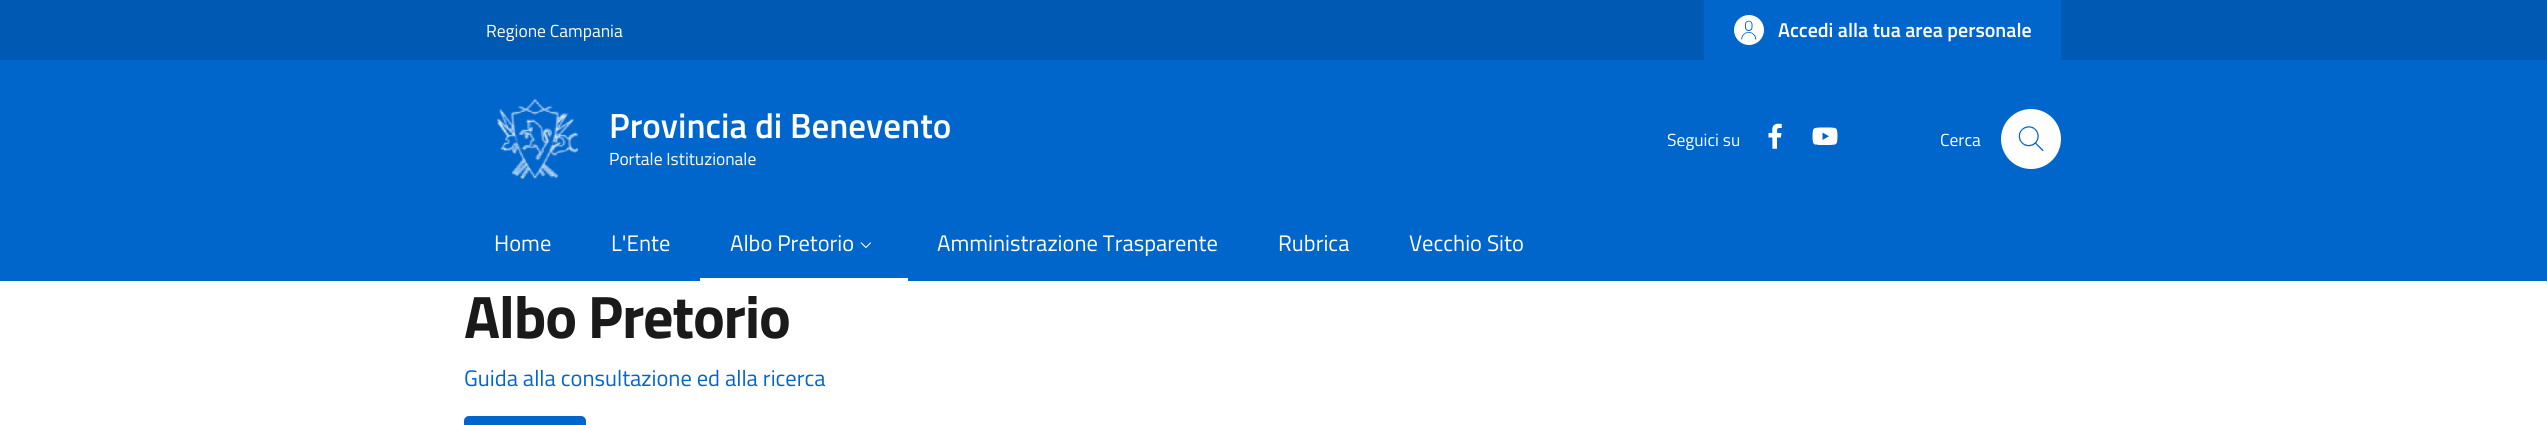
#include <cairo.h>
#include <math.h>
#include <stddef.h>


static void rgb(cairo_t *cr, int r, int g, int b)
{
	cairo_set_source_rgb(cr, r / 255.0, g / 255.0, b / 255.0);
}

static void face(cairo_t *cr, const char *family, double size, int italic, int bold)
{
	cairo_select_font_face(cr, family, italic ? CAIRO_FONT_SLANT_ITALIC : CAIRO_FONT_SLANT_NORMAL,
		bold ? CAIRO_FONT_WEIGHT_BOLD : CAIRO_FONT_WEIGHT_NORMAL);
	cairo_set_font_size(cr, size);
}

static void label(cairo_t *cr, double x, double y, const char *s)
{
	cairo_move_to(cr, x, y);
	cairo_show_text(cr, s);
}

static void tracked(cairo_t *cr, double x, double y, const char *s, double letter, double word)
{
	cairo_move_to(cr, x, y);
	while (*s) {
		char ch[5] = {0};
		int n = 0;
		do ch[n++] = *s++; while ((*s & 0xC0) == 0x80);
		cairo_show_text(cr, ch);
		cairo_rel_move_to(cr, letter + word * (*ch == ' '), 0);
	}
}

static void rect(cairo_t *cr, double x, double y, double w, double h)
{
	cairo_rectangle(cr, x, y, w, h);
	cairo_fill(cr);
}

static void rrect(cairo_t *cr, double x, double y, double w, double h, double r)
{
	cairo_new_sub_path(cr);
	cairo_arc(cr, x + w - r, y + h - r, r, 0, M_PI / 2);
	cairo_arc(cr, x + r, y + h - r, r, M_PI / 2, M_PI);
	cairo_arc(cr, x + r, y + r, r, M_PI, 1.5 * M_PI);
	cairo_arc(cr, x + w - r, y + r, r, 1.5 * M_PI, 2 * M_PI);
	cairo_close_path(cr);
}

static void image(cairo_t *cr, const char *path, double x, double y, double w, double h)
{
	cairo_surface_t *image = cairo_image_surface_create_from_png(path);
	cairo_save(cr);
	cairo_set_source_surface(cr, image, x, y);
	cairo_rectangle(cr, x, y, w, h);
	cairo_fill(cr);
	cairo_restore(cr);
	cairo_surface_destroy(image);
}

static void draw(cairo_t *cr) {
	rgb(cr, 255, 255, 255);
	cairo_paint(cr);
	rgb(cr, 0, 89, 179);
	rect(cr, 0, 0, 2547, 60);
	face(cr, "Titillium Web", 17.5, 0, 0);
	rgb(cr, 255, 255, 255);
	label(cr, 486, 37, "Regione Campania");
	rgb(cr, 0, 102, 204);
	rect(cr, 1704, 0, 357, 60);
	rgb(cr, 255, 255, 255);
	cairo_new_path(cr);
	cairo_arc(cr, 1749, 30, 15, 0, 2 * M_PI);
	cairo_fill(cr);
	image(cr, "image0.png", 1741, 20, 16, 20);
	face(cr, "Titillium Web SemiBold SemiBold", 20, 0, 0);
	label(cr, 1778, 37, "Accedi alla tua area personale");
	rgb(cr, 0, 102, 204);
	rect(cr, 0, 60, 2547, 221);
	image(cr, "image1.png", 497, 99, 81, 80);
	face(cr, "Titillium Web SemiBold SemiBold", 35, 0, 0);
	rgb(cr, 255, 255, 255);
	label(cr, 609, 138, "Provincia di Benevento");
	face(cr, "Titillium Web", 17.5, 0, 0);
	label(cr, 609, 165, "Portale Istituzionale");
	label(cr, 1667, 146, "Seguici su");
	image(cr, "image2.png", 1768, 123, 14, 26);
	image(cr, "image3.png", 1812, 127, 26, 18);
	label(cr, 1940, 146, "Cerca");
	cairo_new_path(cr);
	cairo_arc(cr, 2031, 139, 30, 0, 2 * M_PI);
	cairo_fill(cr);
	image(cr, "image4.png", 2018, 126, 26, 26);
	face(cr, "Titillium Web", 22.5, 0, 0);
	label(cr, 494, 251, "Home");
	label(cr, 611, 251, "L'Ente");
	rect(cr, 700, 278, 208, 3);
	label(cr, 730, 251, "Albo Pretorio");
	image(cr, "image5.png", 860, 242, 11, 7);
	label(cr, 937, 251, "Amministrazione Trasparente");
	label(cr, 1278, 251, "Rubrica");
	label(cr, 1409, 251, "Vecchio Sito");
	face(cr, "Titillium Web", 60, 0, 1);
	rgb(cr, 26, 26, 26);
	tracked(cr, 464, 338, "Albo Pretorio", -1.25, 0);
	face(cr, "Titillium Web", 22.5, 0, 0);
	rgb(cr, 0, 102, 204);
	label(cr, 464, 386, "Guida alla consultazione ed alla ricerca");
	rrect(cr, 464, 416, 122, 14, 5);
	cairo_fill(cr);
}

int main(void) {
	cairo_surface_t *surface = cairo_image_surface_create(CAIRO_FORMAT_RGB24, 2547, 425);
	cairo_t *cr = cairo_create(surface);
	cairo_font_options_t *options = cairo_font_options_create();
	cairo_font_options_set_hint_metrics(options, CAIRO_HINT_METRICS_OFF);
	cairo_font_options_set_hint_style(options, CAIRO_HINT_STYLE_NONE);
	cairo_set_font_options(cr, options);
	cairo_set_miter_limit(cr, 4);
	draw(cr);
	cairo_surface_write_to_png(surface, "render.png");
	cairo_font_options_destroy(options);
	cairo_destroy(cr);
	cairo_surface_destroy(surface);
	return 0;
}
